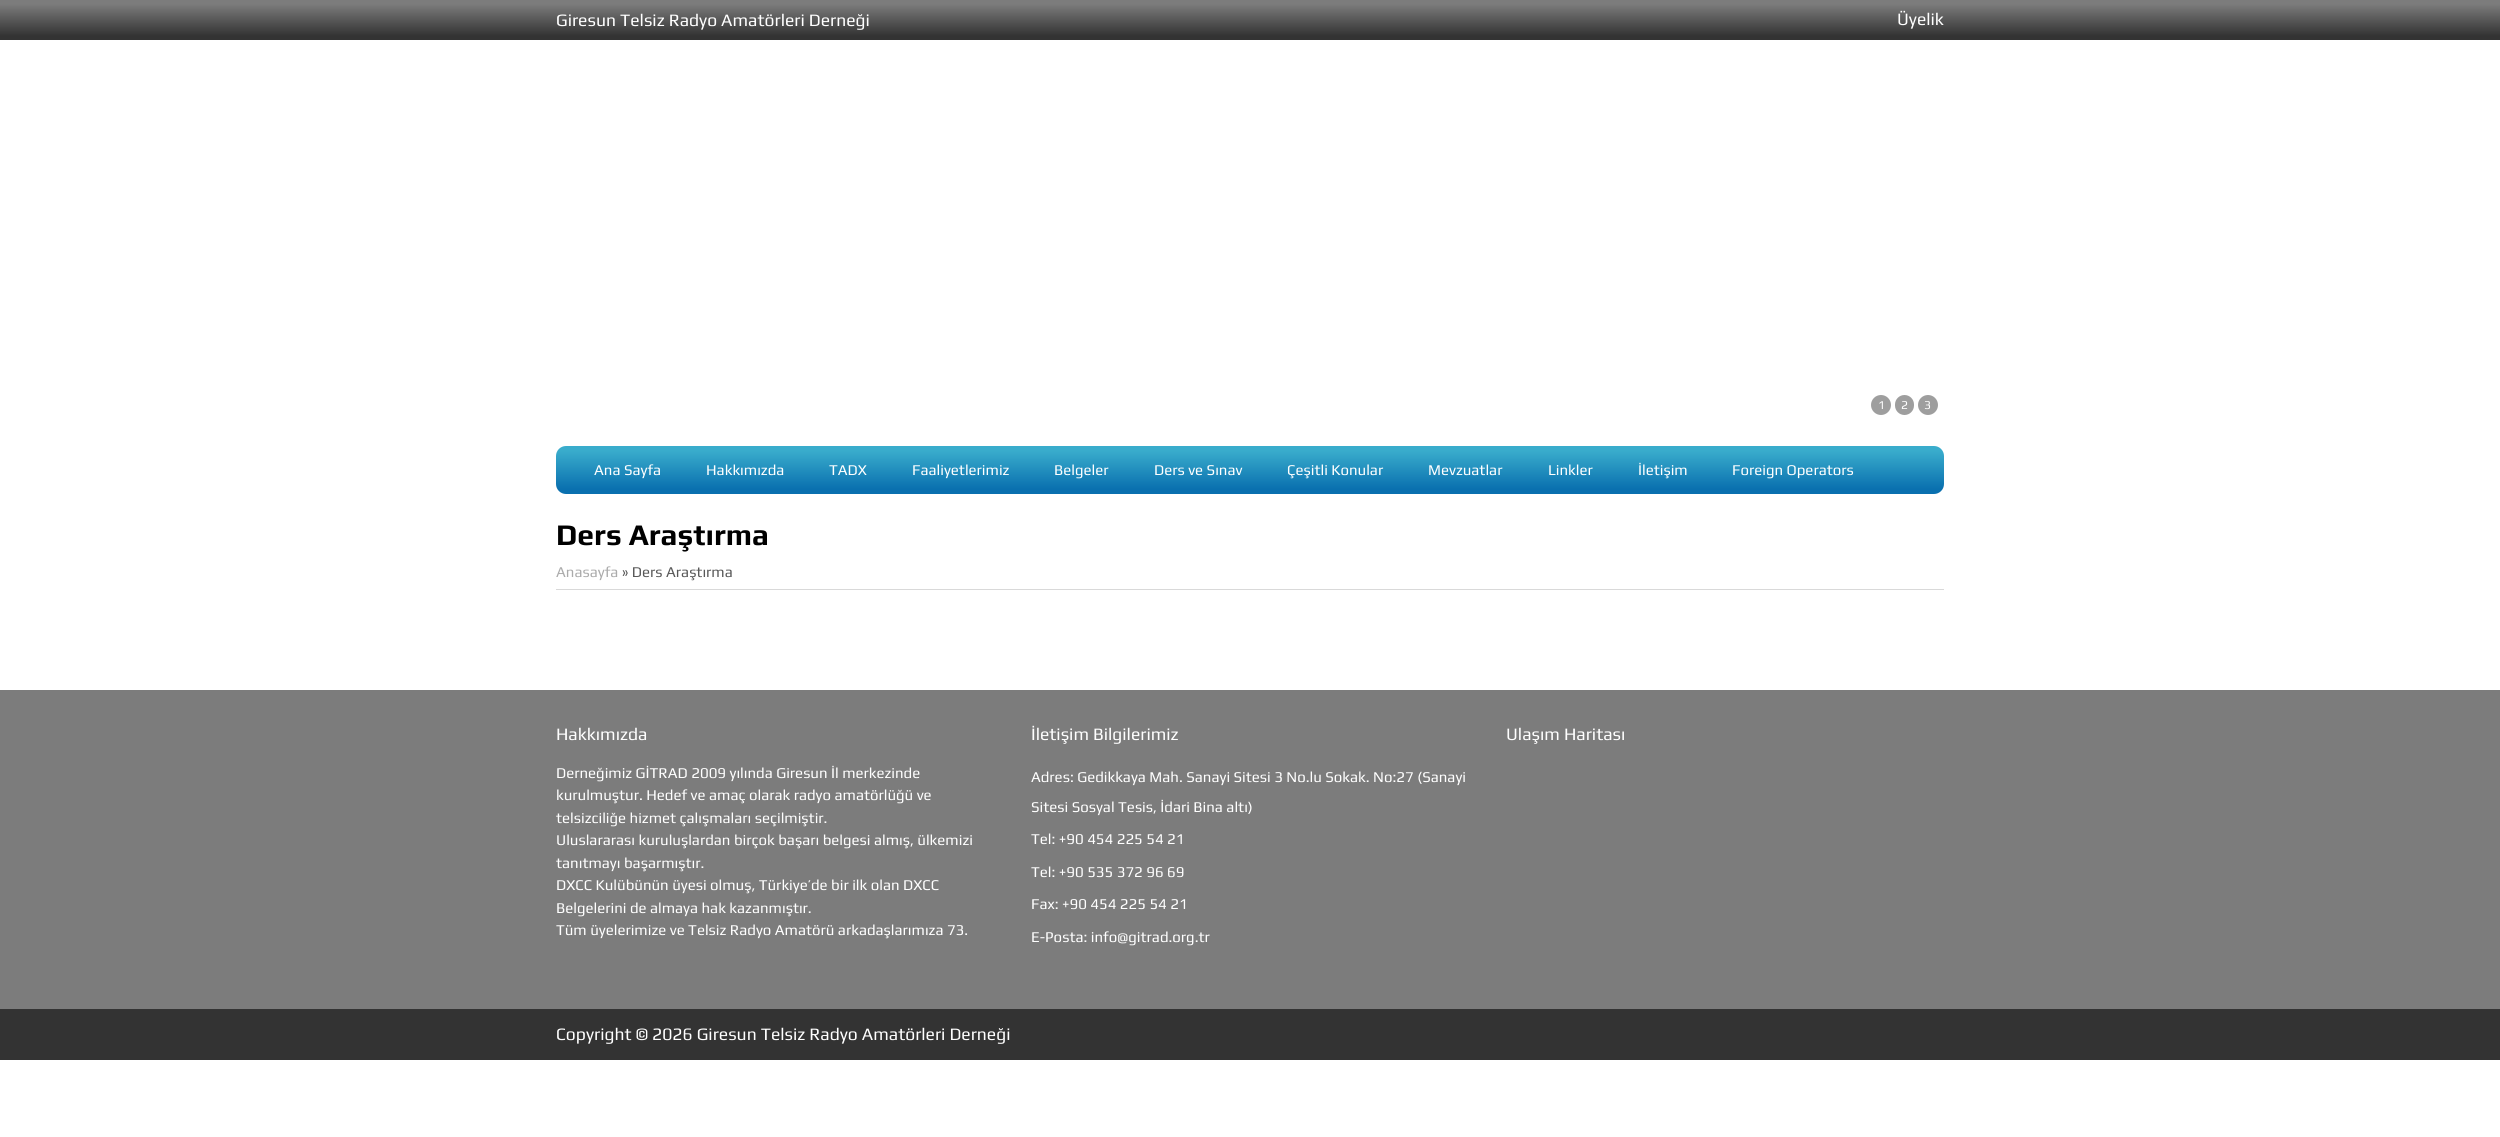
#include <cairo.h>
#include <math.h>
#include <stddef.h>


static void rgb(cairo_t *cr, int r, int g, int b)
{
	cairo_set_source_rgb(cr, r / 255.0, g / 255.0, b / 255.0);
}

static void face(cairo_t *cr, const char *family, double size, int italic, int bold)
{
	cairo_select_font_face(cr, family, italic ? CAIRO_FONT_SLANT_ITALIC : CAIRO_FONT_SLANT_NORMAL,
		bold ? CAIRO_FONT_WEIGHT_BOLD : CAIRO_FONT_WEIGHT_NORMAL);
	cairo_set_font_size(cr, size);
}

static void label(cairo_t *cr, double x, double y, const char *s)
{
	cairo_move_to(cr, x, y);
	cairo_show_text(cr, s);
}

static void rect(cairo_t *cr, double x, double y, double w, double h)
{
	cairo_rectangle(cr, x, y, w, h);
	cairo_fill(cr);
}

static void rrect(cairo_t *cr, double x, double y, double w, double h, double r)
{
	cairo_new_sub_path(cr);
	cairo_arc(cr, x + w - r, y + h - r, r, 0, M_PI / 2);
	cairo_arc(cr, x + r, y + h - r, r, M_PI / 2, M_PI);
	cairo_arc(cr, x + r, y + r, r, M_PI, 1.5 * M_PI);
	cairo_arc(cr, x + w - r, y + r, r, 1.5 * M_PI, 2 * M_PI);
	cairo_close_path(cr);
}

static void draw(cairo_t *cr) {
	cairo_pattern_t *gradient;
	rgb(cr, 255, 255, 255);
	cairo_paint(cr);
	gradient = cairo_pattern_create_linear(1250, 40, 1250, 0);
	cairo_pattern_add_color_stop_rgba(gradient, 0.1, 0.2, 0.2, 0.2, 1);
	cairo_pattern_add_color_stop_rgba(gradient, 0.9, 0.486, 0.486, 0.486, 1);
	cairo_set_source(cr, gradient);
	cairo_pattern_destroy(gradient);
	rect(cr, 0, 0, 2500, 40);
	face(cr, "Play", 17.5, 0, 0);
	rgb(cr, 255, 255, 255);
	label(cr, 556, 26, "Giresun Telsiz Radyo Amatörleri Derneği");
	label(cr, 1897, 25, "Üyelik");
	rgb(cr, 158, 158, 158);
	cairo_new_path(cr);
	cairo_arc(cr, 1881, 405, 10, 0, 2 * M_PI);
	cairo_fill(cr);
	face(cr, "Play", 12, 0, 0);
	rgb(cr, 255, 255, 255);
	label(cr, 1878, 409, "1");
	rgb(cr, 158, 158, 158);
	rrect(cr, 1895, 395, 19, 20, 9.5);
	cairo_fill(cr);
	rgb(cr, 255, 255, 255);
	label(cr, 1901, 409, "2");
	rgb(cr, 158, 158, 158);
	cairo_new_path(cr);
	cairo_arc(cr, 1928, 405, 10, 0, 2 * M_PI);
	cairo_fill(cr);
	rgb(cr, 255, 255, 255);
	label(cr, 1924, 409, "3");
	gradient = cairo_pattern_create_linear(1250, 494, 1250, 446);
	cairo_pattern_add_color_stop_rgba(gradient, 0.1, 0.039, 0.439, 0.686, 1);
	cairo_pattern_add_color_stop_rgba(gradient, 0.9, 0.224, 0.675, 0.8, 1);
	cairo_set_source(cr, gradient);
	cairo_pattern_destroy(gradient);
	rrect(cr, 556, 446, 1388, 48, 10);
	cairo_fill(cr);
	face(cr, "Play", 15, 0, 0);
	rgb(cr, 255, 255, 255);
	label(cr, 594, 475, "Ana Sayfa");
	label(cr, 706, 475, "Hakkımızda");
	label(cr, 829, 475, "TADX");
	label(cr, 912, 475, "Faaliyetlerimiz");
	label(cr, 1054, 475, "Belgeler");
	label(cr, 1154, 475, "Ders ve Sınav");
	label(cr, 1287, 475, "Çeşitli Konular");
	label(cr, 1428, 475, "Mevzuatlar");
	label(cr, 1548, 475, "Linkler");
	label(cr, 1638, 475, "İletişim");
	label(cr, 1732, 475, "Foreign Operators");
	face(cr, "Play", 30, 0, 1);
	rgb(cr, 0, 0, 0);
	label(cr, 556, 545, "Ders Araştırma");
	rgb(cr, 217, 217, 217);
	rect(cr, 556, 589, 1388, 1);
	face(cr, "Play", 15, 0, 0);
	rgb(cr, 171, 171, 171);
	label(cr, 556, 577, "Anasayfa");
	rgb(cr, 88, 88, 88);
	label(cr, 622, 577, "» Ders Araştırma");
	rgb(cr, 124, 124, 124);
	rect(cr, 0, 690, 2500, 319);
	face(cr, "Play", 17.5, 0, 0);
	rgb(cr, 255, 255, 255);
	label(cr, 556, 740, "Hakkımızda");
	face(cr, "Play", 15, 0, 0);
	label(cr, 556, 778, "Derneğimiz GİTRAD 2009 yılında Giresun İl merkezinde");
	label(cr, 556, 800, "kurulmuştur. Hedef ve amaç olarak radyo amatörlüğü ve");
	label(cr, 556, 823, "telsizciliğe hizmet çalışmaları seçilmiştir.");
	label(cr, 556, 845, "Uluslararası kuruluşlardan birçok başarı belgesi almış, ülkemizi");
	label(cr, 556, 868, "tanıtmayı başarmıştır.");
	label(cr, 556, 890, "DXCC Kulübünün üyesi olmuş, Türkiye’de bir ilk olan DXCC");
	label(cr, 556, 913, "Belgelerini de almaya hak kazanmıştır.");
	label(cr, 556, 935, "Tüm üyelerimize ve Telsiz Radyo Amatörü arkadaşlarımıza 73.");
	face(cr, "Play", 17.5, 0, 0);
	label(cr, 1031, 740, "İletişim Bilgilerimiz");
	face(cr, "Play", 15, 0, 0);
	label(cr, 1031, 782, "Adres: Gedikkaya Mah. Sanayi Sitesi 3 No.lu Sokak. No:27 (Sanayi");
	label(cr, 1031, 812, "Sitesi Sosyal Tesis, İdari Bina altı)");
	label(cr, 1031, 844, "Tel: +90 454 225 54 21");
	label(cr, 1031, 877, "Tel: +90 535 372 96 69");
	label(cr, 1031, 909, "Fax: +90 454 225 54 21");
	label(cr, 1031, 942, "E-Posta: info@gitrad.org.tr");
	face(cr, "Play", 17.5, 0, 0);
	label(cr, 1506, 740, "Ulaşım Haritası");
	rgb(cr, 51, 51, 51);
	rect(cr, 0, 1009, 2500, 51);
	rgb(cr, 255, 255, 255);
	label(cr, 556, 1040, "Copyright © 2026 Giresun Telsiz Radyo Amatörleri Derneği");
}

int main(void) {
	cairo_surface_t *surface = cairo_image_surface_create(CAIRO_FORMAT_RGB24, 2500, 1137);
	cairo_t *cr = cairo_create(surface);
	cairo_font_options_t *options = cairo_font_options_create();
	cairo_font_options_set_hint_metrics(options, CAIRO_HINT_METRICS_OFF);
	cairo_font_options_set_hint_style(options, CAIRO_HINT_STYLE_NONE);
	cairo_set_font_options(cr, options);
	cairo_set_miter_limit(cr, 4);
	draw(cr);
	cairo_surface_write_to_png(surface, "render.png");
	cairo_font_options_destroy(options);
	cairo_destroy(cr);
	cairo_surface_destroy(surface);
	return 0;
}
